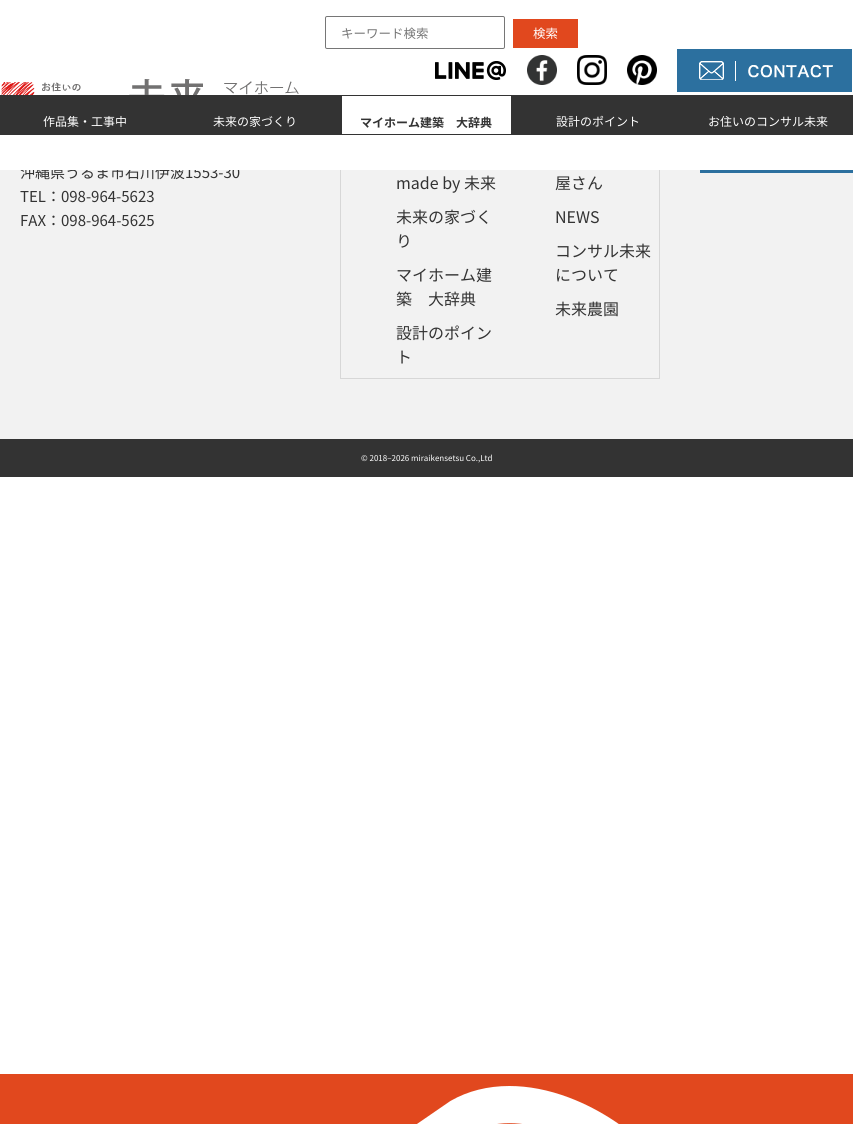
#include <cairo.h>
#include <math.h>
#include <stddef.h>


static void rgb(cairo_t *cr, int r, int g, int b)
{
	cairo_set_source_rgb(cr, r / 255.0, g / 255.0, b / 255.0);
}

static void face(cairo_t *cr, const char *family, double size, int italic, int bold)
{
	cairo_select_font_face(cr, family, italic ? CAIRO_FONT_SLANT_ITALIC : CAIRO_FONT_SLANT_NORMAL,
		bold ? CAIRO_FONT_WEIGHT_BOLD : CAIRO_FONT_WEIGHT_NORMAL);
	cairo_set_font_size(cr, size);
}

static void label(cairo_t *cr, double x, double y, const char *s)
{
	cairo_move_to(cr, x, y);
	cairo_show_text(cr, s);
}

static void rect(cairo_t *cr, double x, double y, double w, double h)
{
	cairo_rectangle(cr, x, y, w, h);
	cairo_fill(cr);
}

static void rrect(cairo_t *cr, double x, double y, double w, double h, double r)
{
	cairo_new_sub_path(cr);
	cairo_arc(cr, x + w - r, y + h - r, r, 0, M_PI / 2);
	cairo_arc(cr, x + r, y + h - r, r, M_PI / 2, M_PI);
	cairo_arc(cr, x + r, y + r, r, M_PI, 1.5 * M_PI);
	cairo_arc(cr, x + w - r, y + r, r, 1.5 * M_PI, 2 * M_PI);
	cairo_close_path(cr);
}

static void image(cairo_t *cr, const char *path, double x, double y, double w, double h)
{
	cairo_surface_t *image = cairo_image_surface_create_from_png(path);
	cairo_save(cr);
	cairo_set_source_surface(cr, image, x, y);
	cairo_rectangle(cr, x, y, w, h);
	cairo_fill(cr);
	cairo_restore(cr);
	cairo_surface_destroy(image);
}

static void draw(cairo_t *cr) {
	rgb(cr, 255, 255, 255);
	cairo_paint(cr);
	rgb(cr, 242, 242, 242);
	rect(cr, 0, 170, 853, 269);
	face(cr, "Noto Sans JP", 15, 0, 0);
	rgb(cr, 51, 51, 51);
	label(cr, 20, 178, "沖縄県うるま市石川伊波1553-30");
	cairo_rectangle(cr, 340.5, 103.5, 319, 275);
	rgb(cr, 215, 215, 215);
	cairo_set_line_width(cr, 1);
	cairo_stroke(cr);
	rgb(cr, 255, 255, 255);
	rect(cr, 21, 103, 639, 67);
	rrect(cr, 325.5, 16.5, 179, 32, 1.5);
	rgb(cr, 118, 118, 118);
	cairo_stroke(cr);
	face(cr, "Noto Sans JP", 12.5, 0, 0);
	rgb(cr, 117, 117, 117);
	label(cr, 341, 38, "キーワード検索");
	rgb(cr, 225, 72, 30);
	rect(cr, 513, 19, 65, 29);
	rgb(cr, 255, 255, 255);
	label(cr, 533, 38, "検索");
	image(cr, "image0.png", 1, 79, 298, 16);
	image(cr, "image1.png", 435, 61, 71, 19);
	image(cr, "image2.png", 527, 55, 30, 30);
	image(cr, "image3.png", 577, 55, 30, 30);
	image(cr, "image4.png", 627, 55, 30, 30);
	image(cr, "image5.png", 677, 49, 175, 43);
	rgb(cr, 51, 51, 51);
	rect(cr, 0, 95, 341, 40);
	face(cr, "Noto Sans JP", 12, 0, 0);
	rgb(cr, 255, 255, 255);
	label(cr, 43, 126, "作品集・工事中");
	label(cr, 213, 126, "未来の家づくり");
	cairo_rectangle(cr, 341.5, 95.5, 170, 39);
	rgb(cr, 51, 51, 51);
	cairo_stroke(cr);
	face(cr, "Noto Sans JP", 12, 0, 1);
	label(cr, 360, 127, "マイホーム建築　大辞典");
	rect(cr, 512, 95, 341, 40);
	face(cr, "Noto Sans JP", 12, 0, 0);
	rgb(cr, 255, 255, 255);
	label(cr, 556, 126, "設計のポイント");
	label(cr, 708, 126, "お住いのコンサル未来");
	face(cr, "Noto Sans JP", 15, 0, 0);
	rgb(cr, 51, 51, 51);
	label(cr, 20, 202, "TEL：098-964-5623");
	label(cr, 20, 226, "FAX：098-964-5625");
	image(cr, "image6.png", 700, 170, 153, 3);
	face(cr, "Noto Sans JP", 16, 0, 0);
	label(cr, 396, 189, "made by 未来");
	label(cr, 396, 223, "未来の家づく");
	label(cr, 396, 247, "り");
	label(cr, 396, 281, "マイホーム建");
	label(cr, 396, 305, "築　大辞典");
	label(cr, 396, 339, "設計のポイン");
	label(cr, 396, 363, "ト");
	label(cr, 555, 189, "屋さん");
	label(cr, 555, 223, "NEWS");
	label(cr, 555, 257, "コンサル未来");
	label(cr, 555, 281, "について");
	label(cr, 555, 315, "未来農園");
	rect(cr, 0, 439, 853, 38);
	face(cr, "Noto Sans JP", 8, 0, 0);
	rgb(cr, 255, 255, 255);
	label(cr, 361, 461, "© 2018–2026 miraikensetsu Co.,Ltd");
	rgb(cr, 225, 72, 30);
	rect(cr, 0, 1074, 853, 50);
	image(cr, "image7.png", 417, 1086, 202, 38);
}

int main(void) {
	cairo_surface_t *surface = cairo_image_surface_create(CAIRO_FORMAT_RGB24, 853, 1124);
	cairo_t *cr = cairo_create(surface);
	cairo_font_options_t *options = cairo_font_options_create();
	cairo_font_options_set_hint_metrics(options, CAIRO_HINT_METRICS_OFF);
	cairo_font_options_set_hint_style(options, CAIRO_HINT_STYLE_NONE);
	cairo_set_font_options(cr, options);
	cairo_set_miter_limit(cr, 4);
	draw(cr);
	cairo_surface_write_to_png(surface, "render.png");
	cairo_font_options_destroy(options);
	cairo_destroy(cr);
	cairo_surface_destroy(surface);
	return 0;
}
